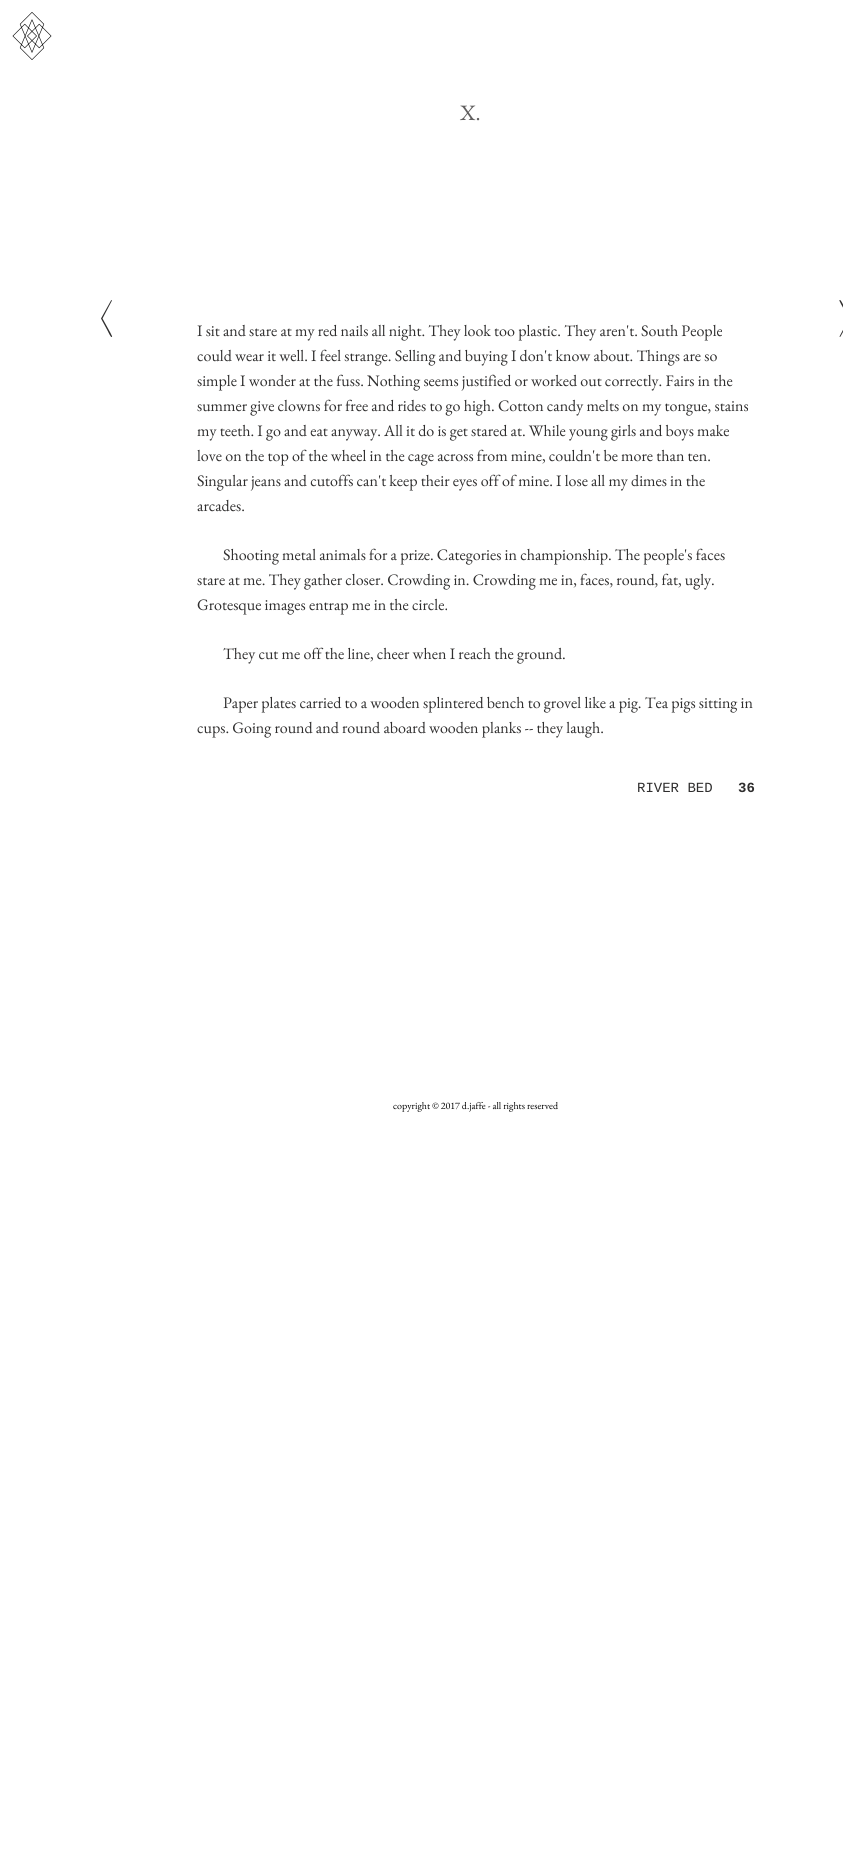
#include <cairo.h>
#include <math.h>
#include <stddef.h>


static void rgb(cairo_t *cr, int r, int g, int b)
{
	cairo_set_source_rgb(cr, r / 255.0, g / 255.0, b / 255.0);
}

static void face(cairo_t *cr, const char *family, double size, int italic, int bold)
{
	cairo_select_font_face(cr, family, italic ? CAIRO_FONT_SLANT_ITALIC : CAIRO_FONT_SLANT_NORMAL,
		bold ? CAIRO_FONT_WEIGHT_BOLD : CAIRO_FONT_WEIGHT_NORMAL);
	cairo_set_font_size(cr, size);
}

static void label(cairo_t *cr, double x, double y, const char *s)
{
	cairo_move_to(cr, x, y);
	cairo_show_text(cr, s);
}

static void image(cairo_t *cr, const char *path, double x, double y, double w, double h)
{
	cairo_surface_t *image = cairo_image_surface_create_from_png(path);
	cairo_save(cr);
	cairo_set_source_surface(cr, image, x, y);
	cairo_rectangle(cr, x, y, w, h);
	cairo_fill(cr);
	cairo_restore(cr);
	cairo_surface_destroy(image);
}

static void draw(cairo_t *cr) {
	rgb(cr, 255, 255, 255);
	cairo_paint(cr);
	image(cr, "image0.png", 12, 12, 40, 48);
	face(cr, "EB Garamond", 22, 0, 0);
	rgb(cr, 96, 94, 94);
	label(cr, 460, 120, "X.");
	rgb(cr, 47, 46, 46);
	cairo_new_path(cr);
	cairo_move_to(cr, 111.5, 337);
	cairo_curve_to(cr, 110.5, 337, 108, 331.5, 107.5, 330.5);
	cairo_line_to(cr, 101, 318.5);
	cairo_line_to(cr, 111, 300.5);
	cairo_line_to(cr, 111.5, 300);
	cairo_line_to(cr, 112, 300.5);
	cairo_line_to(cr, 102.5, 318.5);
	cairo_line_to(cr, 110.5, 333);
	cairo_curve_to(cr, 111.5, 335.5, 113, 337, 111.5, 337);
	cairo_close_path(cr);
	cairo_fill(cr);
	cairo_new_path(cr);
	cairo_move_to(cr, 840, 300);
	cairo_curve_to(cr, 841, 300, 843.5, 305.5, 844, 306.5);
	cairo_line_to(cr, 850.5, 318.5);
	cairo_line_to(cr, 840.5, 336.5);
	cairo_line_to(cr, 840, 337);
	cairo_line_to(cr, 839.5, 336.5);
	cairo_line_to(cr, 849, 318.5);
	cairo_line_to(cr, 841, 304);
	cairo_curve_to(cr, 840, 301.5, 838.5, 300, 840, 300);
	cairo_close_path(cr);
	cairo_fill(cr);
	face(cr, "EB Garamond", 16, 0, 0);
	label(cr, 197, 336, "I sit and stare at my red nails all night. They look too plastic. They aren't. South People");
	label(cr, 197, 361, "could wear it well. I feel strange. Selling and buying I don't know about. Things are so");
	label(cr, 197, 386, "simple I wonder at the fuss. Nothing seems justified or worked out correctly. Fairs in the");
	label(cr, 197, 411, "summer give clowns for free and rides to go high. Cotton candy melts on my tongue, stains");
	label(cr, 197, 436, "my teeth. I go and eat anyway. All it do is get stared at. While young girls and boys make");
	label(cr, 197, 461, "love on the top of the wheel in the cage across from mine, couldn't be more than ten.");
	label(cr, 197, 486, "Singular jeans and cutoffs can't keep their eyes off of mine. I lose all my dimes in the");
	label(cr, 197, 511, "arcades.");
	label(cr, 223, 560, "Shooting metal animals for a prize. Categories in championship. The people's faces");
	label(cr, 197, 585, "stare at me. They gather closer. Crowding in. Crowding me in, faces, round, fat, ugly.");
	label(cr, 197, 610, "Grotesque images entrap me in the circle.");
	label(cr, 223, 659, "They cut me off the line, cheer when I reach the ground.");
	label(cr, 223, 708, "Paper plates carried to a wooden splintered bench to grovel like a pig. Tea pigs sitting in");
	label(cr, 197, 733, "cups. Going round and round aboard wooden planks -- they laugh.");
	face(cr, "Liberation Mono", 14, 0, 0);
	label(cr, 637, 792, "RIVER BED");
	face(cr, "Liberation Mono", 14, 0, 1);
	label(cr, 738, 792, "36");
	face(cr, "EB Garamond", 10, 0, 0);
	rgb(cr, 0, 0, 0);
	label(cr, 393, 1109, "copyright © 2017 d.jaffe - all rights reserved");
}

int main(void) {
	cairo_surface_t *surface = cairo_image_surface_create(CAIRO_FORMAT_RGB24, 843, 1849);
	cairo_t *cr = cairo_create(surface);
	cairo_font_options_t *options = cairo_font_options_create();
	cairo_font_options_set_hint_metrics(options, CAIRO_HINT_METRICS_OFF);
	cairo_font_options_set_hint_style(options, CAIRO_HINT_STYLE_NONE);
	cairo_set_font_options(cr, options);
	cairo_set_miter_limit(cr, 4);
	draw(cr);
	cairo_surface_write_to_png(surface, "render.png");
	cairo_font_options_destroy(options);
	cairo_destroy(cr);
	cairo_surface_destroy(surface);
	return 0;
}
